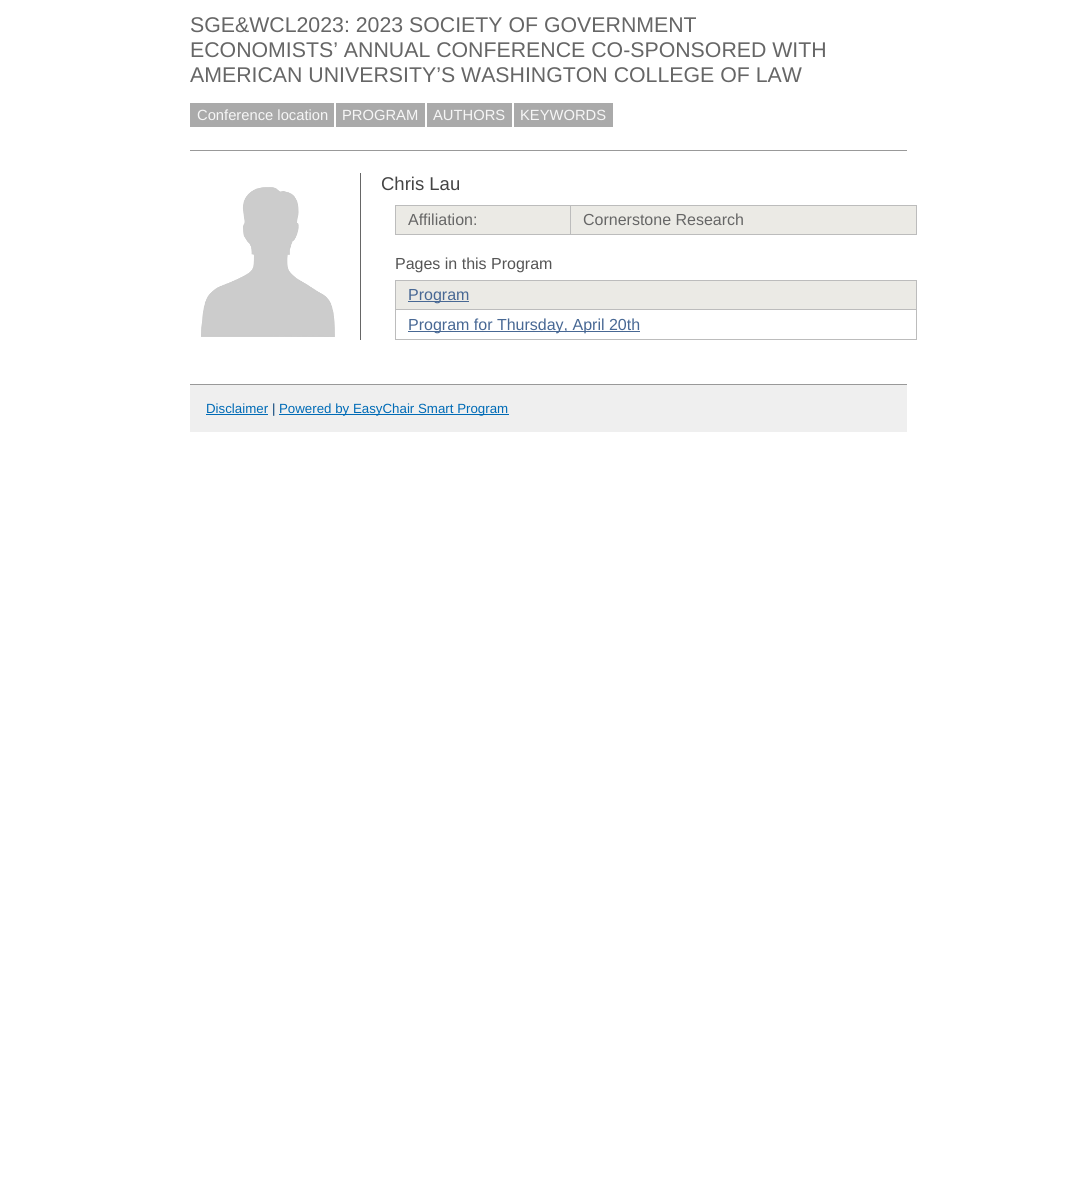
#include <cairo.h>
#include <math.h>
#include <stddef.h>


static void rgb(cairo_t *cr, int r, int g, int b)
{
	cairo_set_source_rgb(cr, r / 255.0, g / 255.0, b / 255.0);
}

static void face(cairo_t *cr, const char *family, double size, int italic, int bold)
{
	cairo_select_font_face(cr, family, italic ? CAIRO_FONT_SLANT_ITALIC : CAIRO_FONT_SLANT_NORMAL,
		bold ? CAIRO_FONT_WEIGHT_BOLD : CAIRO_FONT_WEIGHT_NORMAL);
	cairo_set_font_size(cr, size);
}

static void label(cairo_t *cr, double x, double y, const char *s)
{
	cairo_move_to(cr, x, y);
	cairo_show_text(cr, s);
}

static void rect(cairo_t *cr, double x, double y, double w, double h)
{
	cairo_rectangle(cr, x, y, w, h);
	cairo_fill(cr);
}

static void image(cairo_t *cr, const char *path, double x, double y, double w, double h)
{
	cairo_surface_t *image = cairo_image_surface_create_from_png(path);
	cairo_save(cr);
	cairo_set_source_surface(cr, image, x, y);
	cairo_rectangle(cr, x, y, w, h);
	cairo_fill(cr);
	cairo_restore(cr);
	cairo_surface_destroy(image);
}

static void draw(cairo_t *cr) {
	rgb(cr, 255, 255, 255);
	cairo_paint(cr);
	face(cr, "Liberation Sans", 21.3, 0, 0);
	rgb(cr, 102, 102, 102);
	label(cr, 190, 32, "SGE&WCL2023: 2023 SOCIETY OF GOVERNMENT");
	label(cr, 190, 57, "ECONOMISTS’ ANNUAL CONFERENCE CO-SPONSORED WITH");
	label(cr, 190, 82, "AMERICAN UNIVERSITY’S WASHINGTON COLLEGE OF LAW");
	rgb(cr, 170, 170, 170);
	rect(cr, 190, 103, 144, 24);
	face(cr, "Liberation Sans", 14.75, 0, 0);
	rgb(cr, 246, 246, 246);
	label(cr, 197, 120, "Conference location");
	rgb(cr, 170, 170, 170);
	rect(cr, 336, 103, 89, 24);
	rgb(cr, 246, 246, 246);
	label(cr, 342, 120, "PROGRAM");
	rgb(cr, 170, 170, 170);
	rect(cr, 427, 103, 85, 24);
	rgb(cr, 246, 246, 246);
	label(cr, 433, 120, "AUTHORS");
	rgb(cr, 170, 170, 170);
	rect(cr, 514, 103, 99, 24);
	rgb(cr, 246, 246, 246);
	label(cr, 520, 120, "KEYWORDS");
	rgb(cr, 153, 153, 153);
	rect(cr, 190, 150, 717, 1);
	image(cr, "image0.png", 201, 187, 134, 150);
	rgb(cr, 102, 102, 102);
	rect(cr, 360, 173, 1, 167);
	face(cr, "Liberation Sans", 18.5, 0, 0);
	rgb(cr, 68, 68, 68);
	label(cr, 381, 190, "Chris Lau");
	rgb(cr, 235, 234, 229);
	rect(cr, 396, 206, 520, 28);
	rgb(cr, 188, 188, 188);
	rect(cr, 395, 205, 522, 1);
	rect(cr, 395, 234, 522, 1);
	rect(cr, 395, 205, 1, 30);
	face(cr, "Liberation Sans", 16, 0, 0);
	rgb(cr, 102, 102, 102);
	label(cr, 408, 225, "Affiliation:");
	rgb(cr, 188, 188, 188);
	rect(cr, 916, 205, 1, 30);
	rect(cr, 570, 205, 1, 30);
	rgb(cr, 102, 102, 102);
	label(cr, 583, 225, "Cornerstone Research");
	rgb(cr, 85, 85, 85);
	label(cr, 395, 269, "Pages in this Program");
	rgb(cr, 235, 234, 229);
	rect(cr, 396, 281, 520, 28);
	rgb(cr, 188, 188, 188);
	rect(cr, 395, 280, 522, 1);
	rgb(cr, 72, 104, 148);
	rect(cr, 408, 301, 61, 1);
	label(cr, 408, 300, "Program");
	rgb(cr, 188, 188, 188);
	rect(cr, 395, 339, 522, 1);
	rect(cr, 395, 309, 522, 1);
	rect(cr, 916, 280, 1, 60);
	rect(cr, 395, 280, 1, 60);
	rgb(cr, 72, 104, 148);
	rect(cr, 408, 331, 232, 1);
	label(cr, 408, 330, "Program for Thursday, April 20th");
	rgb(cr, 239, 239, 239);
	rect(cr, 190, 385, 717, 47);
	rgb(cr, 153, 153, 153);
	rect(cr, 190, 384, 717, 1);
	face(cr, "Liberation Sans", 13.3, 0, 0);
	rgb(cr, 0, 107, 182);
	label(cr, 206, 413, "Disclaimer");
	rect(cr, 206, 414, 62, 1);
	rgb(cr, 4, 63, 118);
	label(cr, 272, 413, "|");
	rgb(cr, 0, 107, 182);
	rect(cr, 279, 414, 230, 1);
	label(cr, 279, 413, "Powered by EasyChair Smart Program");
}

int main(void) {
	cairo_surface_t *surface = cairo_image_surface_create(CAIRO_FORMAT_RGB24, 1087, 1187);
	cairo_t *cr = cairo_create(surface);
	cairo_font_options_t *options = cairo_font_options_create();
	cairo_font_options_set_hint_metrics(options, CAIRO_HINT_METRICS_OFF);
	cairo_font_options_set_hint_style(options, CAIRO_HINT_STYLE_NONE);
	cairo_set_font_options(cr, options);
	cairo_set_miter_limit(cr, 4);
	draw(cr);
	cairo_surface_write_to_png(surface, "render.png");
	cairo_font_options_destroy(options);
	cairo_destroy(cr);
	cairo_surface_destroy(surface);
	return 0;
}
